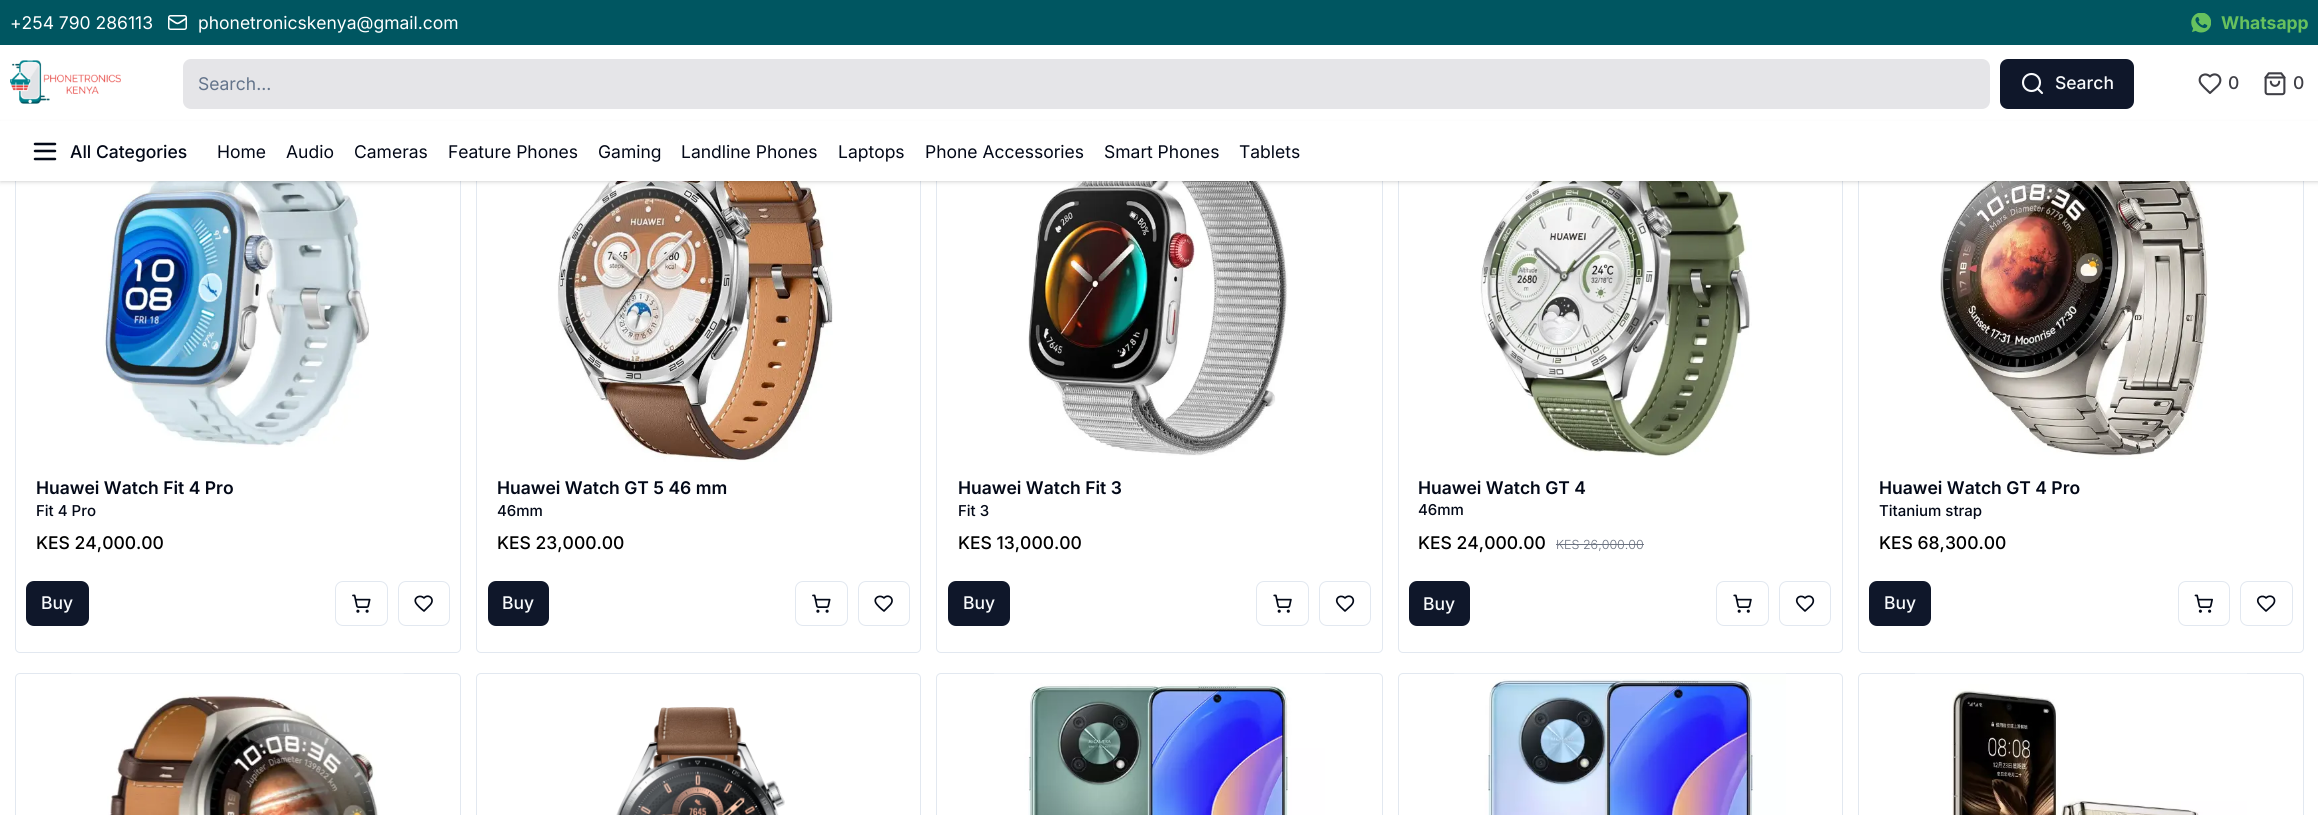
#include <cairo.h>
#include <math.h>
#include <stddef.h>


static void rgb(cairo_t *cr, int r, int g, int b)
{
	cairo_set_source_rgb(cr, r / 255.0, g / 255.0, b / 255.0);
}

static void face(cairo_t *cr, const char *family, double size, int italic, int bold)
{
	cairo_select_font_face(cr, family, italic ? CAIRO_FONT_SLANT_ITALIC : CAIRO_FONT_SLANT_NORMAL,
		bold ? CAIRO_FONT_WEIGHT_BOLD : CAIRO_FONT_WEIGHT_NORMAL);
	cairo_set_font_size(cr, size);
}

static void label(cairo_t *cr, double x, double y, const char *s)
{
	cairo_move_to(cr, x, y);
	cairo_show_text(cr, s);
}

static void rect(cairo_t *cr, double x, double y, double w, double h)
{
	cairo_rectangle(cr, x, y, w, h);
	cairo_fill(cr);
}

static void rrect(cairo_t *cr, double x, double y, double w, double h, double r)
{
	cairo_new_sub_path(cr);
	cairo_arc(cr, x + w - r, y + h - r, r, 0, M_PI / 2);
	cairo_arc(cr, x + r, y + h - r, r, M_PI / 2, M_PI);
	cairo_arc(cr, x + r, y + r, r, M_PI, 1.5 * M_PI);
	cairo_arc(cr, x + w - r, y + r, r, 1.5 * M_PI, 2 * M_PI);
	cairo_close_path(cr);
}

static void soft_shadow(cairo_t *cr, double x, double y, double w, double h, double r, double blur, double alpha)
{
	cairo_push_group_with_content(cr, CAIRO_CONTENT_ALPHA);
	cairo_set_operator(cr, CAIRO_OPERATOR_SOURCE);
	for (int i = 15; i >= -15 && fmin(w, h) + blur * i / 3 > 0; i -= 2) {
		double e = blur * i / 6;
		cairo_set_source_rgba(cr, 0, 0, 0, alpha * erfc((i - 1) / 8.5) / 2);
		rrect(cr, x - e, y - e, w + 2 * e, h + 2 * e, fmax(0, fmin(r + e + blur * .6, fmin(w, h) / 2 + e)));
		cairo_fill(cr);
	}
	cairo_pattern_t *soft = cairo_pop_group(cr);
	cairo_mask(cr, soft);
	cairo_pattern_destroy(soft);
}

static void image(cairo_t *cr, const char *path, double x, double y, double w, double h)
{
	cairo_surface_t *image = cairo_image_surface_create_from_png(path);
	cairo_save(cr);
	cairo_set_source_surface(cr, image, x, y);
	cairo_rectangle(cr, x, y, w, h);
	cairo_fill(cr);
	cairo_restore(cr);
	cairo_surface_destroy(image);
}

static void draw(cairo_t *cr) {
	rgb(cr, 255, 255, 255);
	cairo_paint(cr);
	rgb(cr, 0, 86, 97);
	rect(cr, 0, 0, 2318, 45);
	face(cr, "Inter", 17.5, 0, 0);
	rgb(cr, 255, 255, 255);
	label(cr, 10, 29, "+254 790 286113");
	rrect(cr, 168.75, 15.75, 17.5, 13.5, 1.75);
	cairo_set_line_width(cr, 1.5);
	cairo_stroke(cr);
	cairo_new_path(cr);
	cairo_move_to(cr, 186, 18.5);
	cairo_curve_to(cr, 175.5, 25, 179.5, 25, 169, 18.5);
	cairo_set_line_width(cr, 1.7);
	cairo_set_line_cap(cr, CAIRO_LINE_CAP_ROUND);
	cairo_set_line_join(cr, CAIRO_LINE_JOIN_ROUND);
	cairo_stroke(cr);
	label(cr, 198, 29, "phonetronicskenya@gmail.com");
	image(cr, "image0.png", 2191, 13, 20, 20);
	face(cr, "Inter", 17.5, 0, 1);
	rgb(cr, 103, 193, 94);
	label(cr, 2221, 29, "Whatsapp");
	image(cr, "image1.png", 10, 60, 111, 44);
	rgb(cr, 229, 229, 232);
	rrect(cr, 183, 59, 1807, 50, 8);
	cairo_fill(cr);
	face(cr, "Inter", 17.5, 0, 0);
	rgb(cr, 100, 116, 139);
	label(cr, 198, 90, "Search...");
	rgb(cr, 15, 23, 42);
	rrect(cr, 2000, 59, 134, 50, 8);
	cairo_fill(cr);
	cairo_arc(cr, 2031.5, 82.5, 8.5, 0, 2 * M_PI);
	rgb(cr, 248, 250, 252);
	cairo_set_line_width(cr, 2.1);
	cairo_set_line_cap(cr, CAIRO_LINE_CAP_BUTT);
	cairo_set_line_join(cr, CAIRO_LINE_JOIN_MITER);
	cairo_stroke(cr);
	cairo_new_path(cr);
	cairo_move_to(cr, 2042, 93);
	cairo_line_to(cr, 2037.5, 88.5);
	cairo_set_line_cap(cr, CAIRO_LINE_CAP_ROUND);
	cairo_set_line_join(cr, CAIRO_LINE_JOIN_ROUND);
	cairo_stroke(cr);
	face(cr, "Inter Medium", 17.5, 0, 0);
	label(cr, 2055, 89, "Search");
	cairo_new_path(cr);
	cairo_move_to(cr, 2217.5, 86);
	cairo_curve_to(cr, 2225, 78.5, 2216, 70.5, 2210, 76.5);
	cairo_curve_to(cr, 2205.5, 72, 2198, 75.5, 2200, 82);
	cairo_curve_to(cr, 2201, 85, 2207.5, 90.5, 2210, 93);
	cairo_close_path(cr);
	rgb(cr, 63, 63, 70);
	cairo_stroke(cr);
	label(cr, 2228, 89, "0");
	image(cr, "image2.png", 2264, 72, 22, 24);
	label(cr, 2293, 89, "0");
	rrect(cr, 15.5, 131.5, 445, 521, 4.5);
	rgb(cr, 226, 232, 240);
	cairo_set_line_width(cr, 1);
	cairo_set_line_cap(cr, CAIRO_LINE_CAP_BUTT);
	cairo_set_line_join(cr, CAIRO_LINE_JOIN_MITER);
	cairo_stroke(cr);
	image(cr, "image3.png", 103, 181, 266, 266);
	rrect(cr, 476.5, 131.5, 444, 521, 4.5);
	cairo_stroke(cr);
	image(cr, "image5.png", 557, 181, 276, 281);
	rrect(cr, 936.5, 131.5, 446, 521, 4.5);
	cairo_stroke(cr);
	image(cr, "image6.png", 1028, 181, 260, 275);
	rrect(cr, 1398.5, 131.5, 444, 521, 4.5);
	cairo_stroke(cr);
	image(cr, "image8.png", 1480, 181, 272, 276);
	rrect(cr, 1858.5, 131.5, 445, 521, 4.5);
	cairo_stroke(cr);
	image(cr, "image9.png", 1940, 181, 268, 278);
	rgb(cr, 0, 0, 0);
	soft_shadow(cr, 1, 124, 2317, 57, 0, 1, 0.1);
	soft_shadow(cr, 0, 123, 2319, 60, 0, 2, 0.1);
	rgb(cr, 255, 255, 255);
	rect(cr, 0, 121, 2318, 60);
	cairo_new_path(cr);
	cairo_move_to(cr, 35, 151);
	cairo_line_to(cr, 55, 151);
	cairo_move_to(cr, 35, 144);
	cairo_line_to(cr, 55, 144);
	cairo_move_to(cr, 35, 159);
	cairo_line_to(cr, 55, 159);
	rgb(cr, 2, 8, 23);
	cairo_set_line_width(cr, 2.5);
	cairo_set_line_cap(cr, CAIRO_LINE_CAP_ROUND);
	cairo_set_line_join(cr, CAIRO_LINE_JOIN_ROUND);
	cairo_stroke(cr);
	label(cr, 70, 158, "All Categories");
	face(cr, "Inter", 17.5, 0, 0);
	label(cr, 217, 158, "Home");
	label(cr, 286, 158, "Audio");
	label(cr, 354, 158, "Cameras");
	label(cr, 448, 158, "Feature Phones");
	label(cr, 598, 158, "Gaming");
	label(cr, 681, 158, "Landline Phones");
	label(cr, 838, 158, "Laptops");
	label(cr, 925, 158, "Phone Accessories");
	label(cr, 1104, 158, "Smart Phones");
	label(cr, 1239, 158, "Tablets");
	face(cr, "Inter SemiBold", 17.5, 0, 0);
	label(cr, 36, 494, "Huawei Watch Fit 4 Pro");
	face(cr, "Inter Medium", 15, 0, 0);
	label(cr, 36, 516, "Fit 4 Pro");
	face(cr, "Inter Medium", 17.5, 0, 0);
	rgb(cr, 0, 0, 0);
	label(cr, 36, 549, "KES 24,000.00");
	rgb(cr, 15, 23, 42);
	rrect(cr, 26, 581, 63, 45, 8);
	cairo_fill(cr);
	rgb(cr, 248, 250, 252);
	label(cr, 41, 609, "Buy");
	rrect(cr, 335.5, 581.5, 52, 44, 7.5);
	rgb(cr, 226, 232, 240);
	cairo_set_line_width(cr, 1);
	cairo_set_line_cap(cr, CAIRO_LINE_CAP_BUTT);
	cairo_set_line_join(cr, CAIRO_LINE_JOIN_MITER);
	cairo_stroke(cr);
	image(cr, "image4.png", 352, 594, 19, 19);
	rrect(cr, 398.5, 581.5, 51, 44, 7.5);
	cairo_stroke(cr);
	cairo_new_path(cr);
	cairo_move_to(cr, 429.5, 605.5);
	cairo_curve_to(cr, 436, 599.5, 428.5, 593, 424, 598);
	cairo_curve_to(cr, 420.5, 594.5, 414, 597, 415.5, 602);
	cairo_curve_to(cr, 416.5, 605, 421.5, 609, 424, 611);
	cairo_close_path(cr);
	rgb(cr, 2, 8, 23);
	cairo_set_line_width(cr, 1.7);
	cairo_set_line_cap(cr, CAIRO_LINE_CAP_ROUND);
	cairo_set_line_join(cr, CAIRO_LINE_JOIN_ROUND);
	cairo_stroke(cr);
	face(cr, "Inter SemiBold", 17.5, 0, 0);
	label(cr, 497, 494, "Huawei Watch GT 5 46 mm");
	face(cr, "Inter Medium", 15, 0, 0);
	label(cr, 497, 516, "46mm");
	face(cr, "Inter Medium", 17.5, 0, 0);
	rgb(cr, 0, 0, 0);
	label(cr, 497, 549, "KES 23,000.00");
	rgb(cr, 15, 23, 42);
	rrect(cr, 488, 581, 61, 45, 8);
	cairo_fill(cr);
	rgb(cr, 248, 250, 252);
	label(cr, 502, 609, "Buy");
	rrect(cr, 795.5, 581.5, 52, 44, 7.5);
	rgb(cr, 226, 232, 240);
	cairo_set_line_width(cr, 1);
	cairo_set_line_cap(cr, CAIRO_LINE_CAP_BUTT);
	cairo_set_line_join(cr, CAIRO_LINE_JOIN_MITER);
	cairo_stroke(cr);
	image(cr, "image4.png", 812, 594, 19, 19);
	rrect(cr, 858.5, 581.5, 51, 44, 7.5);
	cairo_stroke(cr);
	cairo_new_path(cr);
	cairo_move_to(cr, 889.5, 605.5);
	cairo_curve_to(cr, 896, 599.5, 888.5, 593, 884, 598);
	cairo_curve_to(cr, 880.5, 594.5, 874, 597, 875.5, 602);
	cairo_curve_to(cr, 876.5, 605, 881.5, 609, 884, 611);
	cairo_close_path(cr);
	rgb(cr, 2, 8, 23);
	cairo_set_line_width(cr, 1.7);
	cairo_set_line_cap(cr, CAIRO_LINE_CAP_ROUND);
	cairo_set_line_join(cr, CAIRO_LINE_JOIN_ROUND);
	cairo_stroke(cr);
	face(cr, "Inter SemiBold", 17.5, 0, 0);
	label(cr, 958, 494, "Huawei Watch Fit 3");
	face(cr, "Inter Medium", 15, 0, 0);
	label(cr, 958, 516, "Fit 3");
	face(cr, "Inter Medium", 17.5, 0, 0);
	rgb(cr, 0, 0, 0);
	label(cr, 958, 549, "KES 13,000.00");
	rgb(cr, 15, 23, 42);
	rrect(cr, 948, 581, 62, 45, 8);
	cairo_fill(cr);
	rgb(cr, 248, 250, 252);
	label(cr, 963, 609, "Buy");
	rrect(cr, 1256.5, 581.5, 52, 44, 7.5);
	rgb(cr, 226, 232, 240);
	cairo_set_line_width(cr, 1);
	cairo_set_line_cap(cr, CAIRO_LINE_CAP_BUTT);
	cairo_set_line_join(cr, CAIRO_LINE_JOIN_MITER);
	cairo_stroke(cr);
	image(cr, "image7.png", 1273, 594, 19, 19);
	rrect(cr, 1319.5, 581.5, 51, 44, 7.5);
	cairo_stroke(cr);
	cairo_new_path(cr);
	cairo_move_to(cr, 1351, 605.5);
	cairo_curve_to(cr, 1357, 599.5, 1350, 593, 1345, 598);
	cairo_curve_to(cr, 1341.5, 594.5, 1335.5, 597, 1337, 602);
	cairo_curve_to(cr, 1338, 605, 1343, 609, 1345, 611);
	cairo_close_path(cr);
	rgb(cr, 2, 8, 23);
	cairo_set_line_width(cr, 1.7);
	cairo_set_line_cap(cr, CAIRO_LINE_CAP_ROUND);
	cairo_set_line_join(cr, CAIRO_LINE_JOIN_ROUND);
	cairo_stroke(cr);
	face(cr, "Inter SemiBold", 17.5, 0, 0);
	label(cr, 1418, 494, "Huawei Watch GT 4");
	face(cr, "Inter Medium", 15, 0, 0);
	label(cr, 1418, 515, "46mm");
	face(cr, "Inter Medium", 17.5, 0, 0);
	rgb(cr, 0, 0, 0);
	label(cr, 1418, 549, "KES 24,000.00");
	face(cr, "Inter Light", 12.5, 0, 0);
	rgb(cr, 107, 114, 128);
	label(cr, 1556, 549, "KES 26,000.00");
	rect(cr, 1556, 544, 88, 1);
	rgb(cr, 15, 23, 42);
	rrect(cr, 1409, 581, 61, 45, 8);
	cairo_fill(cr);
	face(cr, "Inter Medium", 17.5, 0, 0);
	rgb(cr, 248, 250, 252);
	label(cr, 1423, 610, "Buy");
	rrect(cr, 1716.5, 581.5, 52, 44, 7.5);
	rgb(cr, 226, 232, 240);
	cairo_set_line_width(cr, 1);
	cairo_set_line_cap(cr, CAIRO_LINE_CAP_BUTT);
	cairo_set_line_join(cr, CAIRO_LINE_JOIN_MITER);
	cairo_stroke(cr);
	image(cr, "image7.png", 1733, 594, 19, 19);
	rrect(cr, 1779.5, 581.5, 51, 44, 7.5);
	cairo_stroke(cr);
	cairo_new_path(cr);
	cairo_move_to(cr, 1811, 605.5);
	cairo_curve_to(cr, 1817, 599.5, 1810, 593, 1805, 598);
	cairo_curve_to(cr, 1801.5, 594.5, 1795.5, 597, 1797, 602);
	cairo_curve_to(cr, 1798, 605, 1803, 609, 1805, 611);
	cairo_close_path(cr);
	rgb(cr, 2, 8, 23);
	cairo_set_line_width(cr, 1.7);
	cairo_set_line_cap(cr, CAIRO_LINE_CAP_ROUND);
	cairo_set_line_join(cr, CAIRO_LINE_JOIN_ROUND);
	cairo_stroke(cr);
	face(cr, "Inter SemiBold", 17.5, 0, 0);
	label(cr, 1879, 494, "Huawei Watch GT 4 Pro");
	face(cr, "Inter Medium", 15, 0, 0);
	label(cr, 1879, 516, "Titanium strap");
	face(cr, "Inter Medium", 17.5, 0, 0);
	rgb(cr, 0, 0, 0);
	label(cr, 1879, 549, "KES 68,300.00");
	rgb(cr, 15, 23, 42);
	rrect(cr, 1869, 581, 62, 45, 8);
	cairo_fill(cr);
	rgb(cr, 248, 250, 252);
	label(cr, 1884, 609, "Buy");
	rrect(cr, 2178.5, 581.5, 51, 44, 7.5);
	rgb(cr, 226, 232, 240);
	cairo_set_line_width(cr, 1);
	cairo_set_line_cap(cr, CAIRO_LINE_CAP_BUTT);
	cairo_set_line_join(cr, CAIRO_LINE_JOIN_MITER);
	cairo_stroke(cr);
	image(cr, "image10.png", 2194, 594, 19, 19);
	rrect(cr, 2240.5, 581.5, 52, 44, 7.5);
	cairo_stroke(cr);
	cairo_new_path(cr);
	cairo_move_to(cr, 2272, 605.5);
	cairo_curve_to(cr, 2278.5, 599.5, 2271, 593, 2266, 598);
	cairo_curve_to(cr, 2263, 594.5, 2256.5, 597, 2258, 602);
	cairo_curve_to(cr, 2259, 605, 2264, 609, 2266, 611);
	cairo_close_path(cr);
	rgb(cr, 2, 8, 23);
	cairo_set_line_width(cr, 1.7);
	cairo_set_line_cap(cr, CAIRO_LINE_CAP_ROUND);
	cairo_set_line_join(cr, CAIRO_LINE_JOIN_ROUND);
	cairo_stroke(cr);
	rrect(cr, 15.5, 673.5, 445, 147, 4.5);
	rgb(cr, 226, 232, 240);
	cairo_set_line_width(cr, 1);
	cairo_set_line_cap(cr, CAIRO_LINE_CAP_BUTT);
	cairo_set_line_join(cr, CAIRO_LINE_JOIN_MITER);
	cairo_stroke(cr);
	image(cr, "image11.png", 71, 673, 333, 142);
	rrect(cr, 476.5, 673.5, 444, 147, 4.5);
	cairo_stroke(cr);
	image(cr, "image12.png", 616, 707, 169, 108);
	rrect(cr, 936.5, 673.5, 446, 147, 4.5);
	cairo_stroke(cr);
	image(cr, "image13.png", 994, 673, 331, 142);
	rrect(cr, 1398.5, 673.5, 444, 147, 4.5);
	cairo_stroke(cr);
	image(cr, "image14.png", 1454, 673, 332, 142);
	rrect(cr, 1858.5, 673.5, 445, 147, 4.5);
	cairo_stroke(cr);
	image(cr, "image15.png", 1915, 673, 332, 142);
}

int main(void) {
	cairo_surface_t *surface = cairo_image_surface_create(CAIRO_FORMAT_RGB24, 2318, 815);
	cairo_t *cr = cairo_create(surface);
	cairo_font_options_t *options = cairo_font_options_create();
	cairo_font_options_set_hint_metrics(options, CAIRO_HINT_METRICS_OFF);
	cairo_font_options_set_hint_style(options, CAIRO_HINT_STYLE_NONE);
	cairo_set_font_options(cr, options);
	cairo_set_miter_limit(cr, 4);
	draw(cr);
	cairo_surface_write_to_png(surface, "render.png");
	cairo_font_options_destroy(options);
	cairo_destroy(cr);
	cairo_surface_destroy(surface);
	return 0;
}
